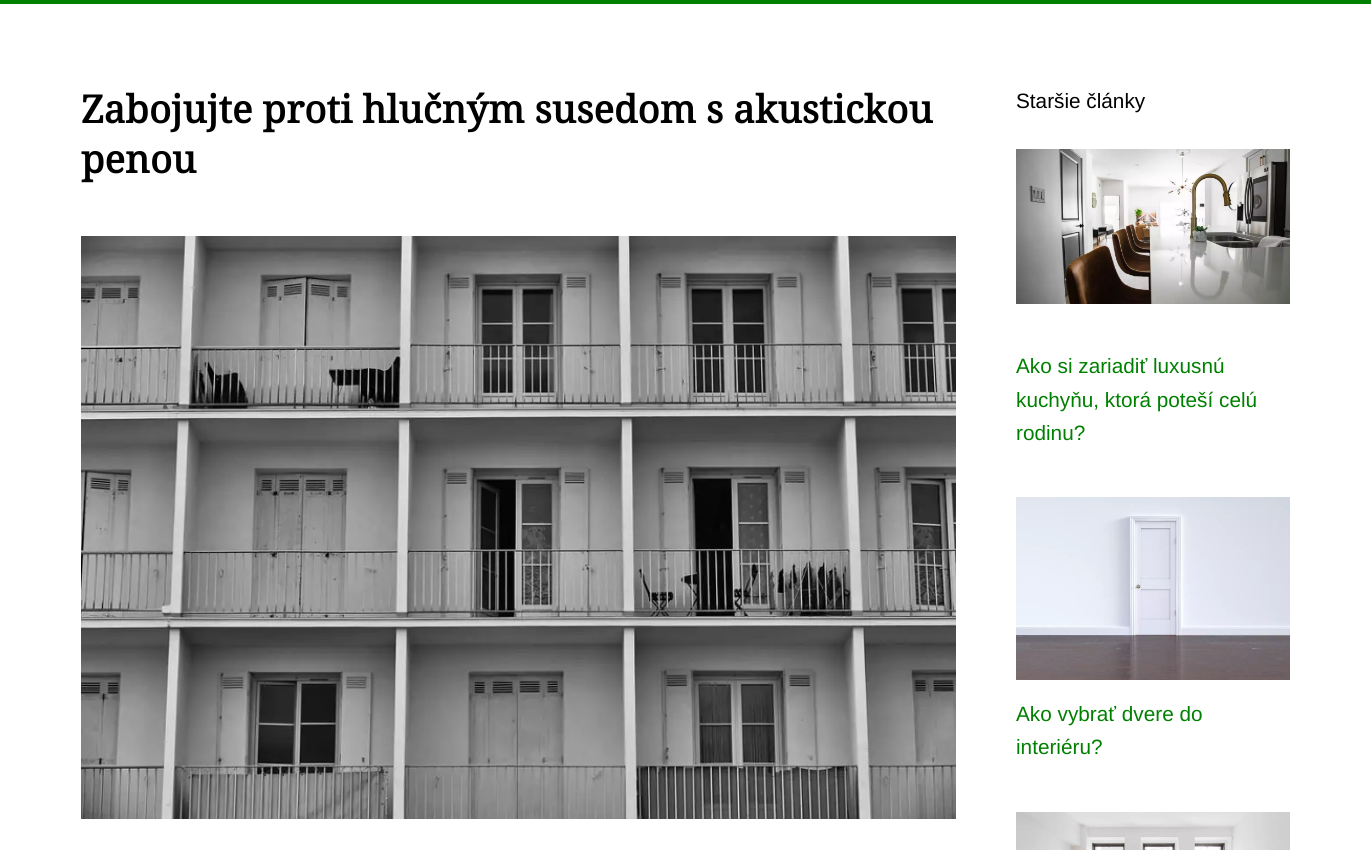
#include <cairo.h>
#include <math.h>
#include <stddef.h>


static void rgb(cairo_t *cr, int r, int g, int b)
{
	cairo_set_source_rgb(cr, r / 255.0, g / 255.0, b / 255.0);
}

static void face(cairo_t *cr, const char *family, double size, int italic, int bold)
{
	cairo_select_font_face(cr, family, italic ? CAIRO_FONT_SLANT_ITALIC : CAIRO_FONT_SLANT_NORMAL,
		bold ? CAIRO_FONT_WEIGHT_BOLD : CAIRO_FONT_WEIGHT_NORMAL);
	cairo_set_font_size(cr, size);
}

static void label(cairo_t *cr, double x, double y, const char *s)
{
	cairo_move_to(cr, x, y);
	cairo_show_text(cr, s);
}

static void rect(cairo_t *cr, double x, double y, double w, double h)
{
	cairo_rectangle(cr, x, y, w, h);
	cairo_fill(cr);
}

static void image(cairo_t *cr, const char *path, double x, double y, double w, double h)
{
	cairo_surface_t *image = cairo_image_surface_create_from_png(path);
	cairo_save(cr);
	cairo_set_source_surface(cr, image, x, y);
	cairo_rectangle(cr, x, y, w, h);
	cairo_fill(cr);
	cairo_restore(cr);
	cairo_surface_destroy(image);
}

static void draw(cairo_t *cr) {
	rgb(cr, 255, 255, 255);
	cairo_paint(cr);
	rgb(cr, 0, 128, 0);
	rect(cr, 0, 0, 1371, 4);
	face(cr, "Noto Serif", 38.4, 0, 1);
	rgb(cr, 0, 0, 0);
	label(cr, 81, 123, "Zabojujte proti hlučným susedom s akustickou");
	label(cr, 81, 173, "penou");
	image(cr, "image0.png", 81, 236, 875, 583);
	face(cr, "Liberation Sans", 20.75, 0, 0);
	label(cr, 1016, 108, "Staršie články");
	image(cr, "image1.png", 1016, 149, 274, 155);
	rgb(cr, 0, 128, 0);
	label(cr, 1016, 373, "Ako si zariadiť luxusnú");
	label(cr, 1016, 407, "kuchyňu, ktorá poteší celú");
	label(cr, 1016, 440, "rodinu?");
	image(cr, "image2.png", 1016, 497, 274, 183);
	label(cr, 1016, 721, "Ako vybrať dvere do");
	label(cr, 1016, 754, "interiéru?");
	image(cr, "image3.png", 1016, 812, 274, 38);
}

int main(void) {
	cairo_surface_t *surface = cairo_image_surface_create(CAIRO_FORMAT_RGB24, 1371, 850);
	cairo_t *cr = cairo_create(surface);
	cairo_font_options_t *options = cairo_font_options_create();
	cairo_font_options_set_hint_metrics(options, CAIRO_HINT_METRICS_OFF);
	cairo_font_options_set_hint_style(options, CAIRO_HINT_STYLE_NONE);
	cairo_set_font_options(cr, options);
	cairo_set_miter_limit(cr, 4);
	draw(cr);
	cairo_surface_write_to_png(surface, "render.png");
	cairo_font_options_destroy(options);
	cairo_destroy(cr);
	cairo_surface_destroy(surface);
	return 0;
}
